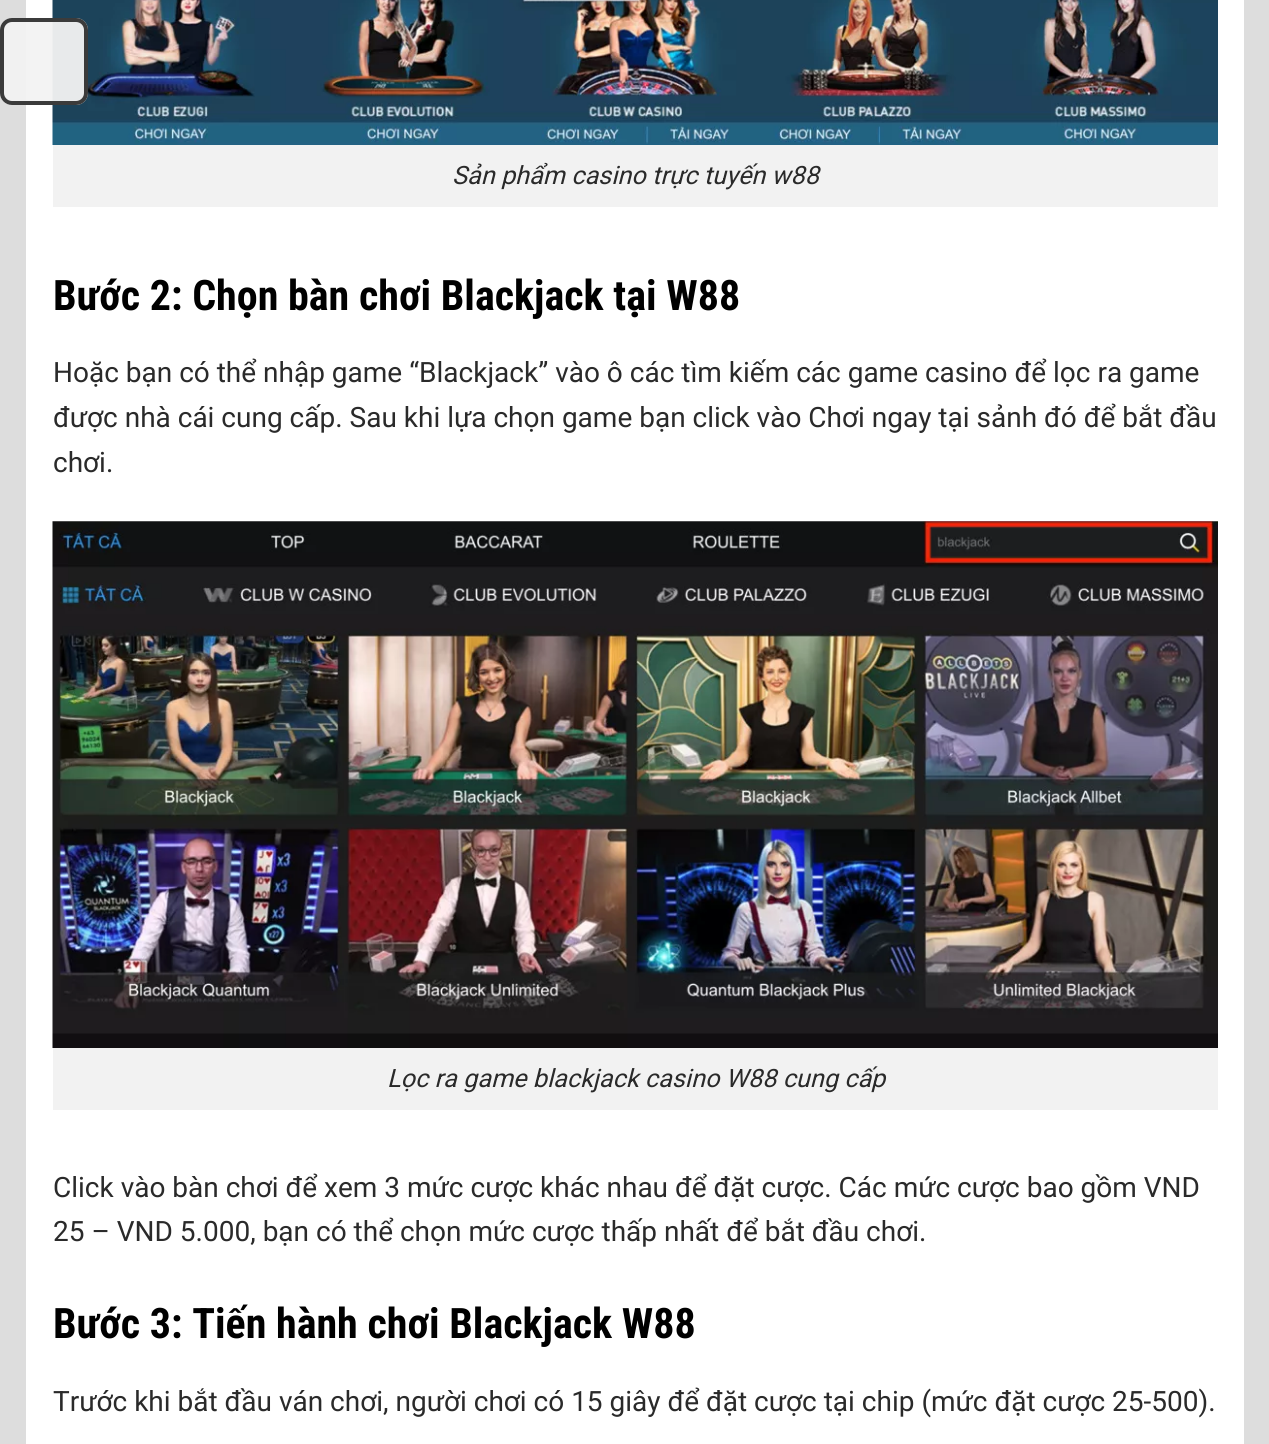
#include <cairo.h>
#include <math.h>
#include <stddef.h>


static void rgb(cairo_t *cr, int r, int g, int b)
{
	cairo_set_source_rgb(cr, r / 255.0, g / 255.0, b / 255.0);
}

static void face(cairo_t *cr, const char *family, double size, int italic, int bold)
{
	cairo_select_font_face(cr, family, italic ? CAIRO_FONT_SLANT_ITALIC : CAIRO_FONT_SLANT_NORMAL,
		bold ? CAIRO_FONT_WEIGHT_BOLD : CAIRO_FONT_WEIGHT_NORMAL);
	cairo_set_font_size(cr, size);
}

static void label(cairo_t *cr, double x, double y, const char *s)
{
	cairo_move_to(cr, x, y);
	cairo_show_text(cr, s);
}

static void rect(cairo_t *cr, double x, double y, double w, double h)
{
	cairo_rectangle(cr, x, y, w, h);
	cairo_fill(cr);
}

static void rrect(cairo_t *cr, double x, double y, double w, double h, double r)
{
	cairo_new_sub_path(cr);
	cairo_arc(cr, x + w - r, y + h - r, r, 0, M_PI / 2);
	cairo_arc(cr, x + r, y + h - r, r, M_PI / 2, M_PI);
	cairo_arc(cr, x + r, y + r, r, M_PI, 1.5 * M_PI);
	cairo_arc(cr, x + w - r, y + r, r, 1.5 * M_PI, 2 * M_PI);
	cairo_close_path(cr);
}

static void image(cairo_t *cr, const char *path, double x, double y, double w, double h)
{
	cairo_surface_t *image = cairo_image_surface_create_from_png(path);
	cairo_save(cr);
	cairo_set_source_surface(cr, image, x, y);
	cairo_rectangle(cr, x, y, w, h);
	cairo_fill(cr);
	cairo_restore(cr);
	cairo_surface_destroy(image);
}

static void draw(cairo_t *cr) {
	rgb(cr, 221, 221, 221);
	cairo_paint(cr);
	rgb(cr, 255, 255, 255);
	rect(cr, 26, 0, 1218, 1444);
	image(cr, "image0.png", 52, 0, 1166, 145);
	cairo_set_source_rgba(cr, 0.953, 0.953, 0.953, 0.95);
	rrect(cr, 0, 18, 88, 87, 12);
	cairo_fill(cr);
	rrect(cr, 2, 20, 84, 83, 10);
	cairo_set_source_rgba(cr, 0.2, 0.2, 0.2, 0.95);
	cairo_set_line_width(cr, 4);
	cairo_stroke(cr);
	rgb(cr, 242, 242, 242);
	rect(cr, 53, 145, 1165, 62);
	face(cr, "Roboto", 25.25, 1, 0);
	rgb(cr, 42, 42, 42);
	label(cr, 452, 184, "Sản phẩm casino trực tuyến w88");
	face(cr, "Roboto Condensed", 42, 0, 1);
	rgb(cr, 0, 0, 0);
	label(cr, 53, 310, "Bước 2: Chọn bàn chơi Blackjack tại W88");
	face(cr, "Roboto", 28, 0, 0);
	rgb(cr, 42, 42, 42);
	label(cr, 53, 382, "Hoặc bạn có thể nhập game “Blackjack” vào ô các tìm kiếm các game casino để lọc ra game");
	label(cr, 53, 427, "được nhà cái cung cấp. Sau khi lựa chọn game bạn click vào Chơi ngay tại sảnh đó để bắt đầu");
	label(cr, 53, 472, "chơi.");
	image(cr, "image1.png", 52, 521, 1166, 527);
	rgb(cr, 242, 242, 242);
	rect(cr, 53, 1048, 1165, 62);
	face(cr, "Roboto", 25.25, 1, 0);
	rgb(cr, 42, 42, 42);
	label(cr, 387, 1087, "Lọc ra game blackjack casino W88 cung cấp");
	face(cr, "Roboto", 28, 0, 0);
	label(cr, 53, 1197, "Click vào bàn chơi để xem 3 mức cược khác nhau để đặt cược. Các mức cược bao gồm VND");
	label(cr, 53, 1241, "25 – VND 5.000, bạn có thể chọn mức cược thấp nhất để bắt đầu chơi.");
	face(cr, "Roboto Condensed", 42, 0, 1);
	rgb(cr, 0, 0, 0);
	label(cr, 53, 1338, "Bước 3: Tiến hành chơi Blackjack W88");
	face(cr, "Roboto", 28, 0, 0);
	rgb(cr, 42, 42, 42);
	label(cr, 53, 1411, "Trước khi bắt đầu ván chơi, người chơi có 15 giây để đặt cược tại chip (mức đặt cược 25-500).");
}

int main(void) {
	cairo_surface_t *surface = cairo_image_surface_create(CAIRO_FORMAT_RGB24, 1269, 1444);
	cairo_t *cr = cairo_create(surface);
	cairo_font_options_t *options = cairo_font_options_create();
	cairo_font_options_set_hint_metrics(options, CAIRO_HINT_METRICS_OFF);
	cairo_font_options_set_hint_style(options, CAIRO_HINT_STYLE_NONE);
	cairo_set_font_options(cr, options);
	cairo_set_miter_limit(cr, 4);
	draw(cr);
	cairo_surface_write_to_png(surface, "render.png");
	cairo_font_options_destroy(options);
	cairo_destroy(cr);
	cairo_surface_destroy(surface);
	return 0;
}
